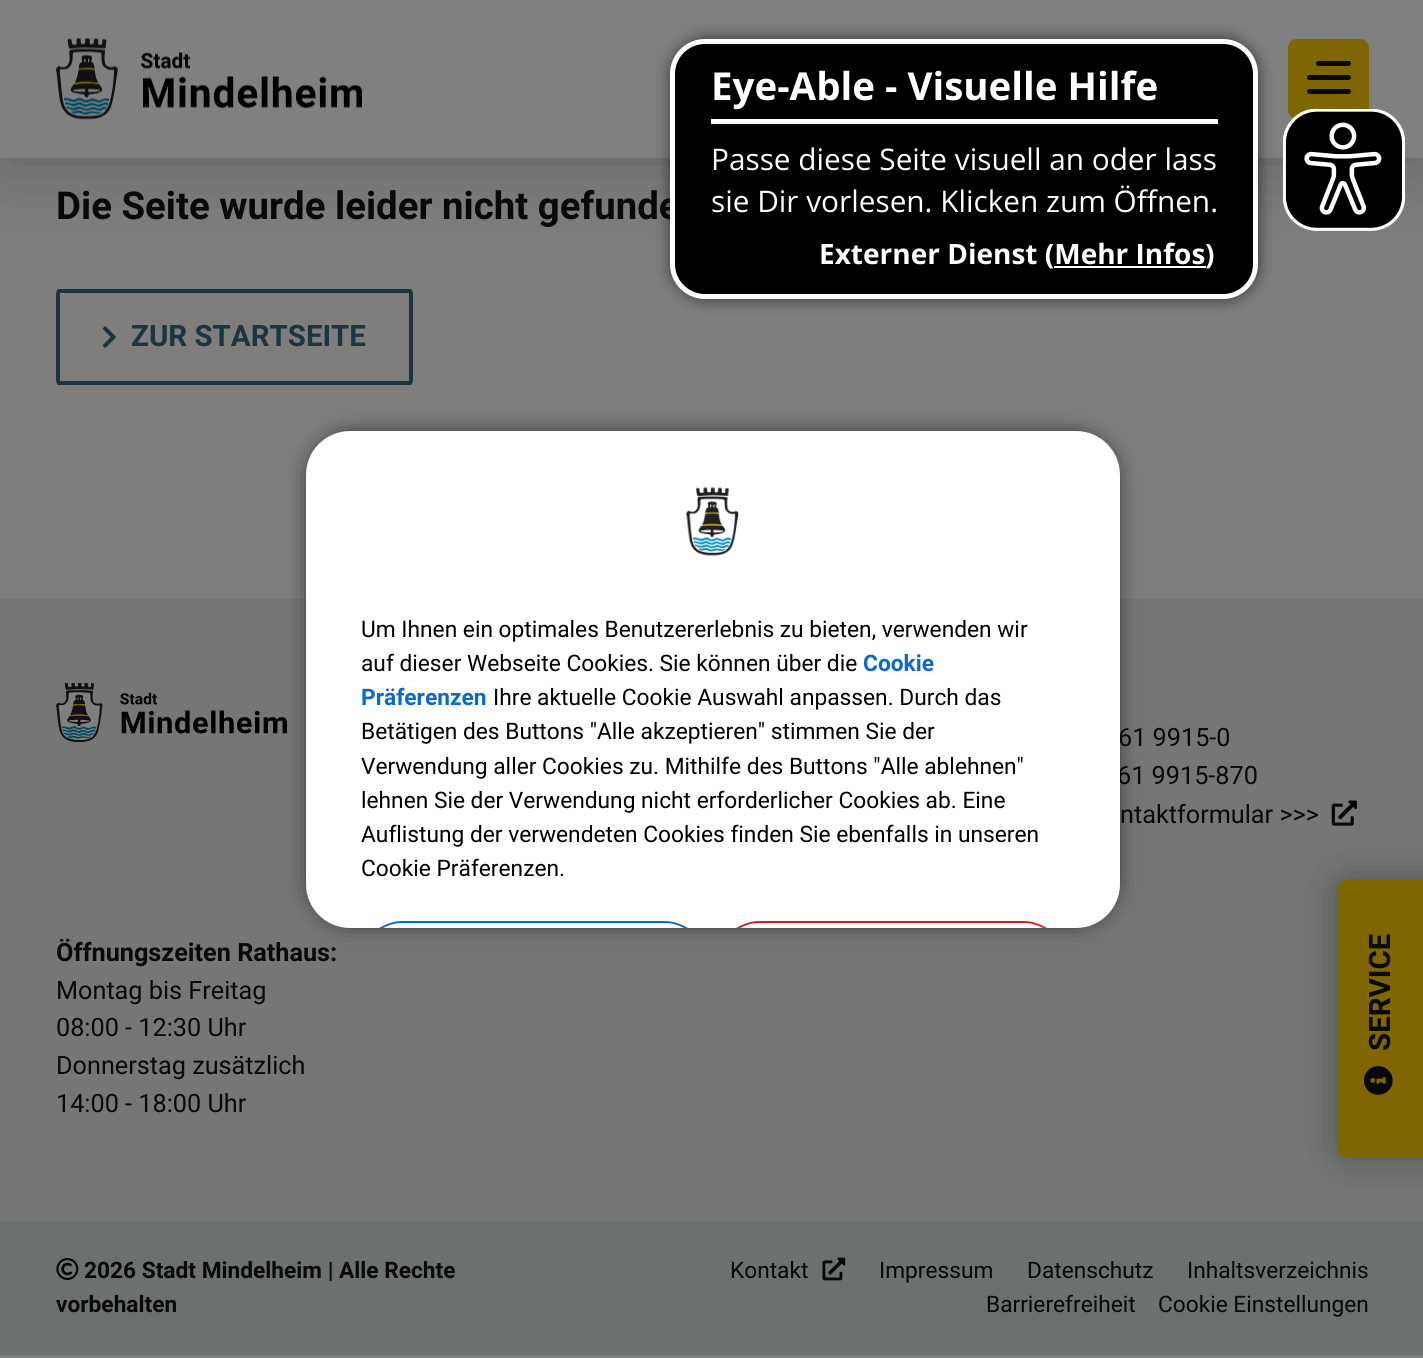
#include <cairo.h>
#include <math.h>
#include <stddef.h>


static void rgb(cairo_t *cr, int r, int g, int b)
{
	cairo_set_source_rgb(cr, r / 255.0, g / 255.0, b / 255.0);
}

static void face(cairo_t *cr, const char *family, double size, int italic, int bold)
{
	cairo_select_font_face(cr, family, italic ? CAIRO_FONT_SLANT_ITALIC : CAIRO_FONT_SLANT_NORMAL,
		bold ? CAIRO_FONT_WEIGHT_BOLD : CAIRO_FONT_WEIGHT_NORMAL);
	cairo_set_font_size(cr, size);
}

static void label(cairo_t *cr, double x, double y, const char *s)
{
	cairo_move_to(cr, x, y);
	cairo_show_text(cr, s);
}

static void rect(cairo_t *cr, double x, double y, double w, double h)
{
	cairo_rectangle(cr, x, y, w, h);
	cairo_fill(cr);
}

static void rrect(cairo_t *cr, double x, double y, double w, double h, double r)
{
	cairo_new_sub_path(cr);
	cairo_arc(cr, x + w - r, y + h - r, r, 0, M_PI / 2);
	cairo_arc(cr, x + r, y + h - r, r, M_PI / 2, M_PI);
	cairo_arc(cr, x + r, y + r, r, M_PI, 1.5 * M_PI);
	cairo_arc(cr, x + w - r, y + r, r, 1.5 * M_PI, 2 * M_PI);
	cairo_close_path(cr);
}

static void soft_shadow(cairo_t *cr, double x, double y, double w, double h, double r, double blur, double alpha)
{
	cairo_push_group_with_content(cr, CAIRO_CONTENT_ALPHA);
	cairo_set_operator(cr, CAIRO_OPERATOR_SOURCE);
	for (int i = 15; i >= -15 && fmin(w, h) + blur * i / 3 > 0; i -= 2) {
		double e = blur * i / 6;
		cairo_set_source_rgba(cr, 0, 0, 0, alpha * erfc((i - 1) / 8.5) / 2);
		rrect(cr, x - e, y - e, w + 2 * e, h + 2 * e, fmax(0, fmin(r + e + blur * .6, fmin(w, h) / 2 + e)));
		cairo_fill(cr);
	}
	cairo_pattern_t *soft = cairo_pop_group(cr);
	cairo_mask(cr, soft);
	cairo_pattern_destroy(soft);
}

static void image(cairo_t *cr, const char *path, double x, double y, double w, double h)
{
	cairo_surface_t *image = cairo_image_surface_create_from_png(path);
	cairo_save(cr);
	cairo_set_source_surface(cr, image, x, y);
	cairo_rectangle(cr, x, y, w, h);
	cairo_fill(cr);
	cairo_restore(cr);
	cairo_surface_destroy(image);
}

static void draw(cairo_t *cr) {
	rgb(cr, 127, 126, 124);
	cairo_paint(cr);
	face(cr, "Roboto", 38.4, 0, 1);
	rgb(cr, 9, 9, 9);
	label(cr, 56, 219, "Die Seite wurde leider nicht gefunde");
	rgb(cr, 28, 53, 63);
	cairo_set_fill_rule(cr, CAIRO_FILL_RULE_EVEN_ODD);
	cairo_new_path(cr);
	cairo_move_to(cr, 56, 294);
	cairo_line_to(cr, 56, 380);
	cairo_curve_to(cr, 56, 382, 57, 384, 58, 385);
	cairo_line_to(cr, 411, 385);
	cairo_curve_to(cr, 412, 384, 413, 382, 413, 380);
	cairo_line_to(cr, 413, 294);
	cairo_curve_to(cr, 413, 292, 412, 290, 411, 289);
	cairo_line_to(cr, 58, 289);
	cairo_curve_to(cr, 57, 290, 56, 292, 56, 294);
	cairo_close_path(cr);
	cairo_move_to(cr, 60, 293);
	cairo_line_to(cr, 60, 381);
	cairo_line_to(cr, 409, 381);
	cairo_line_to(cr, 409, 293);
	cairo_close_path(cr);
	cairo_fill(cr);
	image(cr, "image0.png", 102, 326, 14, 22);
	face(cr, "Roboto", 29.5, 0, 1);
	label(cr, 131, 346, "ZUR STARTSEITE");
	rgb(cr, 9, 9, 9);
	soft_shadow(cr, 0, 0, 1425, 158, 0, 44, 0.25);
	rgb(cr, 128, 128, 128);
	rect(cr, 0, 0, 1423, 158);
	rgb(cr, 0, 0, 0);
	soft_shadow(cr, 669, 37, 591, 264, 37, 7, 0.5);
	rgb(cr, 0, 0, 0);
	rrect(cr, 672.5, 41.5, 583, 255, 32.5);
	cairo_fill_preserve(cr);
	rgb(cr, 255, 255, 255);
	cairo_set_line_width(cr, 5);
	cairo_stroke(cr);
	rect(cr, 711, 119, 507, 5);
	face(cr, "Open Sans", 38.5, 0, 1);
	label(cr, 711, 100, "Eye-Able - Visuelle Hilfe");
	face(cr, "Open Sans", 29.75, 0, 0);
	label(cr, 711, 170, "Passe diese Seite visuell an oder lass");
	label(cr, 711, 212, "sie Dir vorlesen. Klicken zum Öffnen.");
	face(cr, "Open Sans", 28, 0, 1);
	label(cr, 819, 264, "Externer Dienst (Mehr Infos");
	rect(cr, 1054, 266, 152, 2);
	label(cr, 1205, 264, ")");
	rgb(cr, 128, 102, 0);
	rrect(cr, 1288, 39, 81, 80, 9);
	cairo_fill(cr);
	image(cr, "image1.png", 1283, 109, 122, 122);
	rgb(cr, 117, 119, 118);
	rect(cr, 0, 599, 1423, 623);
	image(cr, "image3.png", 56, 683, 231, 59);
	rgb(cr, 0, 0, 0);
	soft_shadow(cr, 315, 439, 796, 480, 35, 13, 1);
	face(cr, "Roboto", 25.25, 0, 0);
	rgb(cr, 9, 9, 9);
	label(cr, 1118, 746, "61 9915-0");
	label(cr, 1117, 784, "61 9915-870");
	rgb(cr, 255, 255, 255);
	rrect(cr, 306, 431, 814, 497, 44);
	cairo_fill(cr);
	image(cr, "image2.png", 685, 487, 54, 69);
	face(cr, "Roboto", 22.75, 0, 0);
	rgb(cr, 0, 0, 0);
	label(cr, 361, 637, "Um Ihnen ein optimales Benutzererlebnis zu bieten, verwenden wir");
	label(cr, 361, 671, "auf dieser Webseite Cookies. Sie können über die");
	face(cr, "Roboto", 22.75, 0, 1);
	rgb(cr, 10, 105, 206);
	label(cr, 863, 671, "Cookie");
	label(cr, 361, 705, "Präferenzen");
	face(cr, "Roboto", 22.75, 0, 0);
	rgb(cr, 0, 0, 0);
	label(cr, 493, 705, "Ihre aktuelle Cookie Auswahl anpassen. Durch das");
	label(cr, 361, 739, "Betätigen des Buttons \"Alle akzeptieren\" stimmen Sie der");
	label(cr, 361, 774, "Verwendung aller Cookies zu. Mithilfe des Buttons \"Alle ablehnen\"");
	label(cr, 361, 808, "lehnen Sie der Verwendung nicht erforderlicher Cookies ab. Eine");
	label(cr, 361, 842, "Auflistung der verwendeten Cookies finden Sie ebenfalls in unseren");
	label(cr, 361, 876, "Cookie Präferenzen.");
	rgb(cr, 10, 105, 206);
	cairo_set_fill_rule(cr, CAIRO_FILL_RULE_WINDING);
	cairo_new_path(cr);
	cairo_move_to(cr, 402, 921);
	cairo_curve_to(cr, 394, 921, 386, 924, 379, 928);
	cairo_line_to(cr, 383, 928);
	cairo_curve_to(cr, 389, 925, 395, 923, 402, 923);
	cairo_line_to(cr, 665, 923);
	cairo_curve_to(cr, 672, 923, 678, 925, 684, 928);
	cairo_line_to(cr, 688, 928);
	cairo_curve_to(cr, 681, 924, 673, 921, 665, 921);
	cairo_close_path(cr);
	cairo_fill(cr);
	rgb(cr, 213, 32, 32);
	cairo_new_path(cr);
	cairo_move_to(cr, 759, 921);
	cairo_curve_to(cr, 751, 921, 743, 924, 736, 928);
	cairo_line_to(cr, 740, 928);
	cairo_curve_to(cr, 746, 925, 752, 923, 759, 923);
	cairo_line_to(cr, 1024, 923);
	cairo_curve_to(cr, 1031, 923, 1037, 925, 1043, 928);
	cairo_line_to(cr, 1047, 928);
	cairo_curve_to(cr, 1040, 924, 1032, 921, 1024, 921);
	cairo_close_path(cr);
	cairo_fill(cr);
	face(cr, "Roboto", 25.25, 0, 0);
	rgb(cr, 9, 9, 9);
	label(cr, 1120, 823, "ntaktformular >>>");
	image(cr, "image4.png", 1331, 800, 26, 26);
	face(cr, "Roboto", 25.25, 0, 1);
	label(cr, 56, 961, "Öffnungszeiten Rathaus:");
	face(cr, "Roboto", 25.25, 0, 0);
	label(cr, 56, 999, "Montag bis Freitag");
	label(cr, 56, 1036, "08:00 - 12:30 Uhr");
	label(cr, 56, 1074, "Donnerstag zusätzlich");
	label(cr, 56, 1112, "14:00 - 18:00 Uhr");
	rgb(cr, 108, 112, 112);
	rect(cr, 0, 1222, 1423, 133);
	image(cr, "image5.png", 56, 1258, 23, 22);
	face(cr, "Roboto", 22.7, 0, 1);
	rgb(cr, 9, 9, 9);
	label(cr, 84, 1278, "2026 Stadt Mindelheim | Alle Rechte");
	label(cr, 56, 1312, "vorbehalten");
	face(cr, "Roboto", 22.7, 0, 0);
	label(cr, 730, 1278, "Kontakt");
	image(cr, "image6.png", 822, 1257, 24, 24);
	label(cr, 879, 1278, "Impressum");
	label(cr, 1027, 1278, "Datenschutz");
	label(cr, 1187, 1278, "Inhaltsverzeichnis");
	label(cr, 986, 1312, "Barrierefreiheit");
	label(cr, 1158, 1312, "Cookie Einstellungen");
	image(cr, "image7.png", 56, 38, 306, 82);
	rrect(cr, 1316, 61, 35, 5, 2.5);
	cairo_fill(cr);
	rrect(cr, 1307, 75, 44, 5, 2.5);
	cairo_fill(cr);
	rrect(cr, 1307, 89, 44, 5, 2.5);
	cairo_fill(cr);
	rgb(cr, 0, 0, 0);
	soft_shadow(cr, 1337, 880, 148, 277, 9, 17.5, 0.33);
	rgb(cr, 128, 102, 0);
	cairo_new_path(cr);
	cairo_move_to(cr, 1346, 880);
	cairo_line_to(cr, 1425, 880);
	cairo_line_to(cr, 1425, 1157);
	cairo_line_to(cr, 1346, 1157);
	cairo_curve_to(cr, 1341, 1157, 1337, 1153, 1337, 1148);
	cairo_line_to(cr, 1337, 889);
	cairo_curve_to(cr, 1337, 884, 1341, 880, 1346, 880);
	cairo_close_path(cr);
	cairo_fill(cr);
	face(cr, "Roboto", 29.5, 0, 1);
	rgb(cr, 9, 9, 9);
	cairo_save(cr);
	cairo_translate(cr, 1390, 1051);
	cairo_rotate(cr, -90 * M_PI / 180);
	label(cr, 0, 0, "SERVICE");
	cairo_restore(cr);
	image(cr, "image8.png", 1363, 1066, 30, 29);
}

int main(void) {
	cairo_surface_t *surface = cairo_image_surface_create(CAIRO_FORMAT_RGB24, 1423, 1358);
	cairo_t *cr = cairo_create(surface);
	cairo_font_options_t *options = cairo_font_options_create();
	cairo_font_options_set_hint_metrics(options, CAIRO_HINT_METRICS_OFF);
	cairo_font_options_set_hint_style(options, CAIRO_HINT_STYLE_NONE);
	cairo_set_font_options(cr, options);
	cairo_set_miter_limit(cr, 4);
	draw(cr);
	cairo_surface_write_to_png(surface, "render.png");
	cairo_font_options_destroy(options);
	cairo_destroy(cr);
	cairo_surface_destroy(surface);
	return 0;
}
